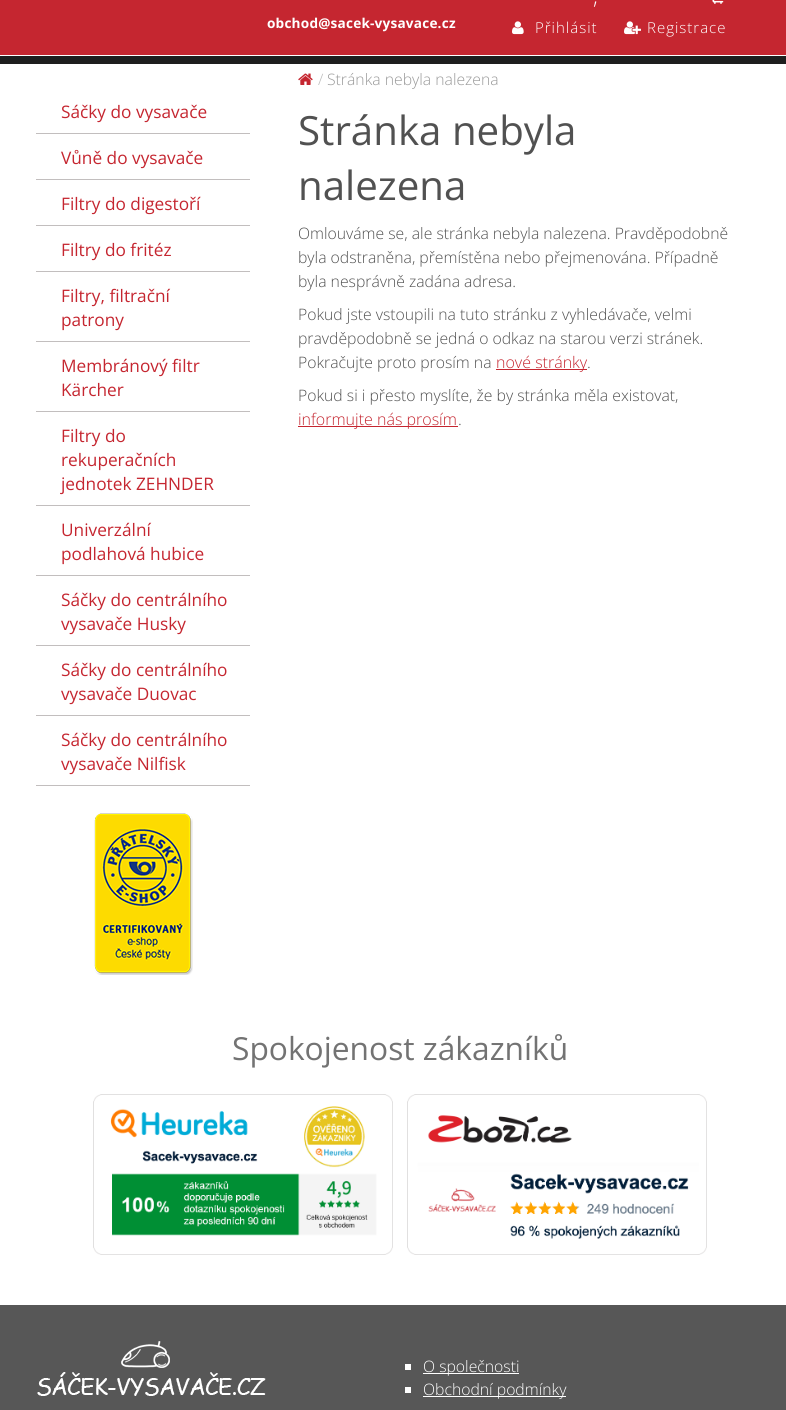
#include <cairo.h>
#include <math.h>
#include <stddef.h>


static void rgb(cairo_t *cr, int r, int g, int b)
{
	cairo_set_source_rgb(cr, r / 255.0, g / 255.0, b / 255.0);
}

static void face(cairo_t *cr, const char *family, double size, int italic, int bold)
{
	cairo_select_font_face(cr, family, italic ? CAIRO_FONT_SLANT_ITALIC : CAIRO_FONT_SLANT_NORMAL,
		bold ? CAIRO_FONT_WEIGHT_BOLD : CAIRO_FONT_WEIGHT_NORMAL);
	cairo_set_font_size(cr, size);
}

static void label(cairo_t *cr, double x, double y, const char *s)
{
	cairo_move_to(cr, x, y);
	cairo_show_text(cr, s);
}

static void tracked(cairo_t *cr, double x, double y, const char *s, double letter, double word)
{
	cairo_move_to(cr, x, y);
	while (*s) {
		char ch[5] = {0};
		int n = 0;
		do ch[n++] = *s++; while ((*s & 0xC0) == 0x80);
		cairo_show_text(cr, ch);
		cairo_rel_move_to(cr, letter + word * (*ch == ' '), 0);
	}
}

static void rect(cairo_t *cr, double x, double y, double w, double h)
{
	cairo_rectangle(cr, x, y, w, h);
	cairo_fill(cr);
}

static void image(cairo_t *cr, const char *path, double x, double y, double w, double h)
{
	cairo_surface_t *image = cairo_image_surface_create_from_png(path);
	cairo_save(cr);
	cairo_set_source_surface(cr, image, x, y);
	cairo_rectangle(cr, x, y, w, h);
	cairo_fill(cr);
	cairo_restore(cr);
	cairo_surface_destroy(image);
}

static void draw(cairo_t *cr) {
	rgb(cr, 197, 38, 48);
	cairo_paint(cr);
	face(cr, "Open Sans", 13.6, 0, 1);
	rgb(cr, 255, 255, 255);
	tracked(cr, 267, 28, "obchod@sacek-vysavace.cz", 0.2, 0);
	face(cr, "Open Sans Light", 22, 0, 0);
	label(cr, 593, 4, ",");
	image(cr, "image0.png", 712, 0, 12, 4);
	image(cr, "image1.png", 512, 21, 12, 14);
	face(cr, "Open Sans Light", 15, 0, 0);
	tracked(cr, 535, 33, "Přihlásit", 1, 0);
	image(cr, "image2.png", 624, 21, 17, 14);
	tracked(cr, 647, 33, "Registrace", 1, 0);
	rgb(cr, 30, 30, 30);
	rect(cr, 0, 56, 786, 8);
	rgb(cr, 255, 255, 255);
	rect(cr, 0, 55, 786, 1);
	rect(cr, 0, 64, 786, 1241);
	rgb(cr, 194, 190, 190);
	rect(cr, 36, 133, 214, 1);
	face(cr, "Open Sans", 17.25, 0, 0);
	rgb(cr, 197, 38, 48);
	label(cr, 61, 118, "Sáčky do vysavače");
	rgb(cr, 194, 190, 190);
	rect(cr, 36, 179, 214, 1);
	rgb(cr, 197, 38, 48);
	label(cr, 61, 164, "Vůně do vysavače");
	rgb(cr, 194, 190, 190);
	rect(cr, 36, 225, 214, 1);
	rgb(cr, 197, 38, 48);
	label(cr, 61, 210, "Filtry do digestoří");
	rgb(cr, 194, 190, 190);
	rect(cr, 36, 271, 214, 1);
	rgb(cr, 197, 38, 48);
	label(cr, 61, 256, "Filtry do fritéz");
	rgb(cr, 194, 190, 190);
	rect(cr, 36, 341, 214, 1);
	rgb(cr, 197, 38, 48);
	label(cr, 61, 302, "Filtry, filtrační");
	label(cr, 61, 326, "patrony");
	rgb(cr, 194, 190, 190);
	rect(cr, 36, 411, 214, 1);
	rgb(cr, 197, 38, 48);
	label(cr, 61, 372, "Membránový filtr");
	label(cr, 61, 396, "Kärcher");
	rgb(cr, 194, 190, 190);
	rect(cr, 36, 505, 214, 1);
	rgb(cr, 197, 38, 48);
	label(cr, 61, 442, "Filtry do");
	label(cr, 61, 466, "rekuperačních");
	label(cr, 61, 490, "jednotek ZEHNDER");
	rgb(cr, 194, 190, 190);
	rect(cr, 36, 575, 214, 1);
	rgb(cr, 197, 38, 48);
	label(cr, 61, 536, "Univerzální");
	label(cr, 61, 560, "podlahová hubice");
	rgb(cr, 194, 190, 190);
	rect(cr, 36, 645, 214, 1);
	rgb(cr, 197, 38, 48);
	label(cr, 61, 606, "Sáčky do centrálního");
	label(cr, 61, 630, "vysavače Husky");
	rgb(cr, 194, 190, 190);
	rect(cr, 36, 715, 214, 1);
	rgb(cr, 197, 38, 48);
	label(cr, 61, 676, "Sáčky do centrálního");
	label(cr, 61, 700, "vysavače Duovac");
	rgb(cr, 194, 190, 190);
	rect(cr, 36, 785, 214, 1);
	rgb(cr, 197, 38, 48);
	label(cr, 61, 746, "Sáčky do centrálního");
	label(cr, 61, 770, "vysavače Nilfisk");
	image(cr, "image3.png", 94, 813, 99, 162);
	image(cr, "image4.png", 298, 73, 15, 12);
	face(cr, "Open Sans Light", 15.75, 0, 0);
	rgb(cr, 187, 187, 187);
	label(cr, 318, 85, "/");
	rgb(cr, 153, 153, 153);
	label(cr, 327, 85, "Stránka nebyla nalezena");
	face(cr, "Open Sans", 40.25, 0, 0);
	rgb(cr, 81, 81, 81);
	label(cr, 298, 145, "Stránka nebyla");
	label(cr, 298, 200, "nalezena");
	face(cr, "Open Sans Light", 15.75, 0, 0);
	label(cr, 298, 239, "Omlouváme se, ale stránka nebyla nalezena. Pravděpodobně");
	label(cr, 298, 263, "byla odstraněna, přemístěna nebo přejmenována. Případně");
	label(cr, 298, 287, "byla nesprávně zadána adresa.");
	label(cr, 298, 320, "Pokud jste vstoupili na tuto stránku z vyhledávače, velmi");
	label(cr, 298, 344, "pravděpodobně se jedná o odkaz na starou verzi stránek.");
	label(cr, 298, 368, "Pokračujte proto prosím na");
	rgb(cr, 197, 38, 48);
	rect(cr, 496, 369, 91, 1);
	face(cr, "Open Sans Light", 16, 0, 0);
	label(cr, 496, 368, "nové stránky");
	face(cr, "Open Sans Light", 15.75, 0, 0);
	rgb(cr, 81, 81, 81);
	label(cr, 587, 368, ".");
	label(cr, 298, 401, "Pokud si i přesto myslíte, že by stránka měla existovat,");
	rgb(cr, 197, 38, 48);
	rect(cr, 298, 426, 160, 1);
	face(cr, "Open Sans Light", 16, 0, 0);
	label(cr, 298, 425, "informujte nás prosím");
	face(cr, "Open Sans Light", 15.75, 0, 0);
	rgb(cr, 81, 81, 81);
	label(cr, 458, 425, ".");
	face(cr, "Open Sans", 31.75, 0, 0);
	rgb(cr, 115, 115, 115);
	label(cr, 232, 1060, "Spokojenost zákazníků");
	image(cr, "image5.png", 93, 1094, 300, 161);
	image(cr, "image6.png", 407, 1094, 300, 161);
	rgb(cr, 87, 87, 87);
	rect(cr, 0, 1305, 786, 105);
	image(cr, "image7.png", 37, 1341, 229, 55);
	rgb(cr, 255, 255, 255);
	rect(cr, 405, 1364, 6, 6);
	rect(cr, 423, 1373, 96, 1);
	face(cr, "Open Sans Light", 15.75, 0, 0);
	label(cr, 423, 1372, "O společnosti");
	rect(cr, 405, 1387, 6, 6);
	rect(cr, 423, 1396, 143, 1);
	label(cr, 423, 1395, "Obchodní podmínky");
}

int main(void) {
	cairo_surface_t *surface = cairo_image_surface_create(CAIRO_FORMAT_RGB24, 786, 1410);
	cairo_t *cr = cairo_create(surface);
	cairo_font_options_t *options = cairo_font_options_create();
	cairo_font_options_set_hint_metrics(options, CAIRO_HINT_METRICS_OFF);
	cairo_font_options_set_hint_style(options, CAIRO_HINT_STYLE_NONE);
	cairo_set_font_options(cr, options);
	cairo_set_miter_limit(cr, 4);
	draw(cr);
	cairo_surface_write_to_png(surface, "render.png");
	cairo_font_options_destroy(options);
	cairo_destroy(cr);
	cairo_surface_destroy(surface);
	return 0;
}
